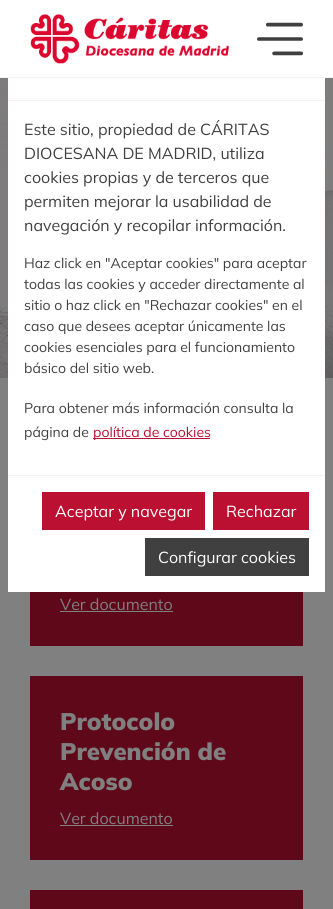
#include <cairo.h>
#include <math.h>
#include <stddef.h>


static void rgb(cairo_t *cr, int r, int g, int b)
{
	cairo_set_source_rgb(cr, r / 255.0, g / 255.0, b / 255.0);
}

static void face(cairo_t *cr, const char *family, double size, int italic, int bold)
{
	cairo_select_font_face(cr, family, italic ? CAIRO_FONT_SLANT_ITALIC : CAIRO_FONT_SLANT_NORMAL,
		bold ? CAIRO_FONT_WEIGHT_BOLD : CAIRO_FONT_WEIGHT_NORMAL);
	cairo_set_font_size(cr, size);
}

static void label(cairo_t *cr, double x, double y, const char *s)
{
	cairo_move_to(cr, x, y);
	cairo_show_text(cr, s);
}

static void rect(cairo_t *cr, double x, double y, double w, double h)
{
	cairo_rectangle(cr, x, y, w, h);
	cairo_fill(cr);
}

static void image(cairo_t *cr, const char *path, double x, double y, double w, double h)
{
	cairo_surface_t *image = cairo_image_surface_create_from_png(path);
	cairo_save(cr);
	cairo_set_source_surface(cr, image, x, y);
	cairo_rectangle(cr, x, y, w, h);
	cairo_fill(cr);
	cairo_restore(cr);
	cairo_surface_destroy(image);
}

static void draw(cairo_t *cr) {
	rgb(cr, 128, 128, 128);
	cairo_paint(cr);
	image(cr, "image2.png", 0, 78, 333, 300);
	rgb(cr, 255, 255, 255);
	rect(cr, 8, 78, 317, 514);
	rgb(cr, 243, 243, 243);
	rect(cr, 8, 100, 317, 1);
	face(cr, "Mulish", 16, 0, 0);
	rgb(cr, 64, 64, 64);
	label(cr, 24, 135, "Este sitio, propiedad de CÁRITAS");
	label(cr, 24, 159, "DIOCESANA DE MADRID, utiliza");
	label(cr, 24, 183, "cookies propias y de terceros que");
	label(cr, 24, 207, "permiten mejorar la usabilidad de");
	label(cr, 24, 231, "navegación y recopilar información.");
	face(cr, "Mulish", 14, 0, 0);
	label(cr, 24, 268, "Haz click en \"Aceptar cookies\" para aceptar");
	label(cr, 24, 289, "todas las cookies y acceder directamente al");
	label(cr, 24, 310, "sitio o haz click en \"Rechazar cookies\" en el");
	label(cr, 24, 331, "caso que desees aceptar únicamente las");
	label(cr, 24, 352, "cookies esenciales para el funcionamiento");
	label(cr, 24, 373, "básico del sitio web.");
	label(cr, 24, 413, "Para obtener más información consulta la");
	label(cr, 24, 437, "página de");
	rgb(cr, 187, 16, 50);
	rect(cr, 93, 438, 117, 1);
	label(cr, 93, 437, "política de cookies");
	rgb(cr, 243, 243, 243);
	rect(cr, 8, 475, 317, 1);
	rgb(cr, 187, 16, 50);
	rect(cr, 42, 492, 163, 38);
	face(cr, "Mulish", 16, 0, 0);
	rgb(cr, 255, 255, 255);
	label(cr, 55, 517, "Aceptar y navegar");
	rgb(cr, 187, 16, 50);
	rect(cr, 213, 492, 96, 38);
	rgb(cr, 255, 255, 255);
	label(cr, 226, 517, "Rechazar");
	rgb(cr, 64, 64, 64);
	rect(cr, 145, 538, 164, 38);
	rgb(cr, 255, 255, 255);
	label(cr, 158, 563, "Configurar cookies");
	rect(cr, 0, 0, 333, 77);
	rgb(cr, 243, 243, 243);
	rect(cr, 0, 77, 333, 1);
	image(cr, "image0.png", 30, 14, 199, 50);
	image(cr, "image1.png", 257, 22, 46, 34);
	rgb(cr, 94, 8, 25);
	rect(cr, 30, 592, 273, 54);
	rgb(cr, 128, 128, 128);
	label(cr, 60, 610, "Ver documento");
	rect(cr, 60, 611, 113, 1);
	rgb(cr, 94, 8, 25);
	rect(cr, 30, 676, 273, 184);
	face(cr, "Mulish Black", 24, 0, 0);
	rgb(cr, 128, 128, 128);
	label(cr, 60, 730, "Protocolo");
	label(cr, 60, 760, "Prevención de");
	label(cr, 60, 790, "Acoso");
	face(cr, "Mulish", 16, 0, 0);
	label(cr, 60, 824, "Ver documento");
	rect(cr, 60, 825, 113, 1);
	rgb(cr, 94, 8, 25);
	rect(cr, 30, 890, 273, 19);
}

int main(void) {
	cairo_surface_t *surface = cairo_image_surface_create(CAIRO_FORMAT_RGB24, 333, 909);
	cairo_t *cr = cairo_create(surface);
	cairo_font_options_t *options = cairo_font_options_create();
	cairo_font_options_set_hint_metrics(options, CAIRO_HINT_METRICS_OFF);
	cairo_font_options_set_hint_style(options, CAIRO_HINT_STYLE_NONE);
	cairo_set_font_options(cr, options);
	cairo_set_miter_limit(cr, 4);
	draw(cr);
	cairo_surface_write_to_png(surface, "render.png");
	cairo_font_options_destroy(options);
	cairo_destroy(cr);
	cairo_surface_destroy(surface);
	return 0;
}
